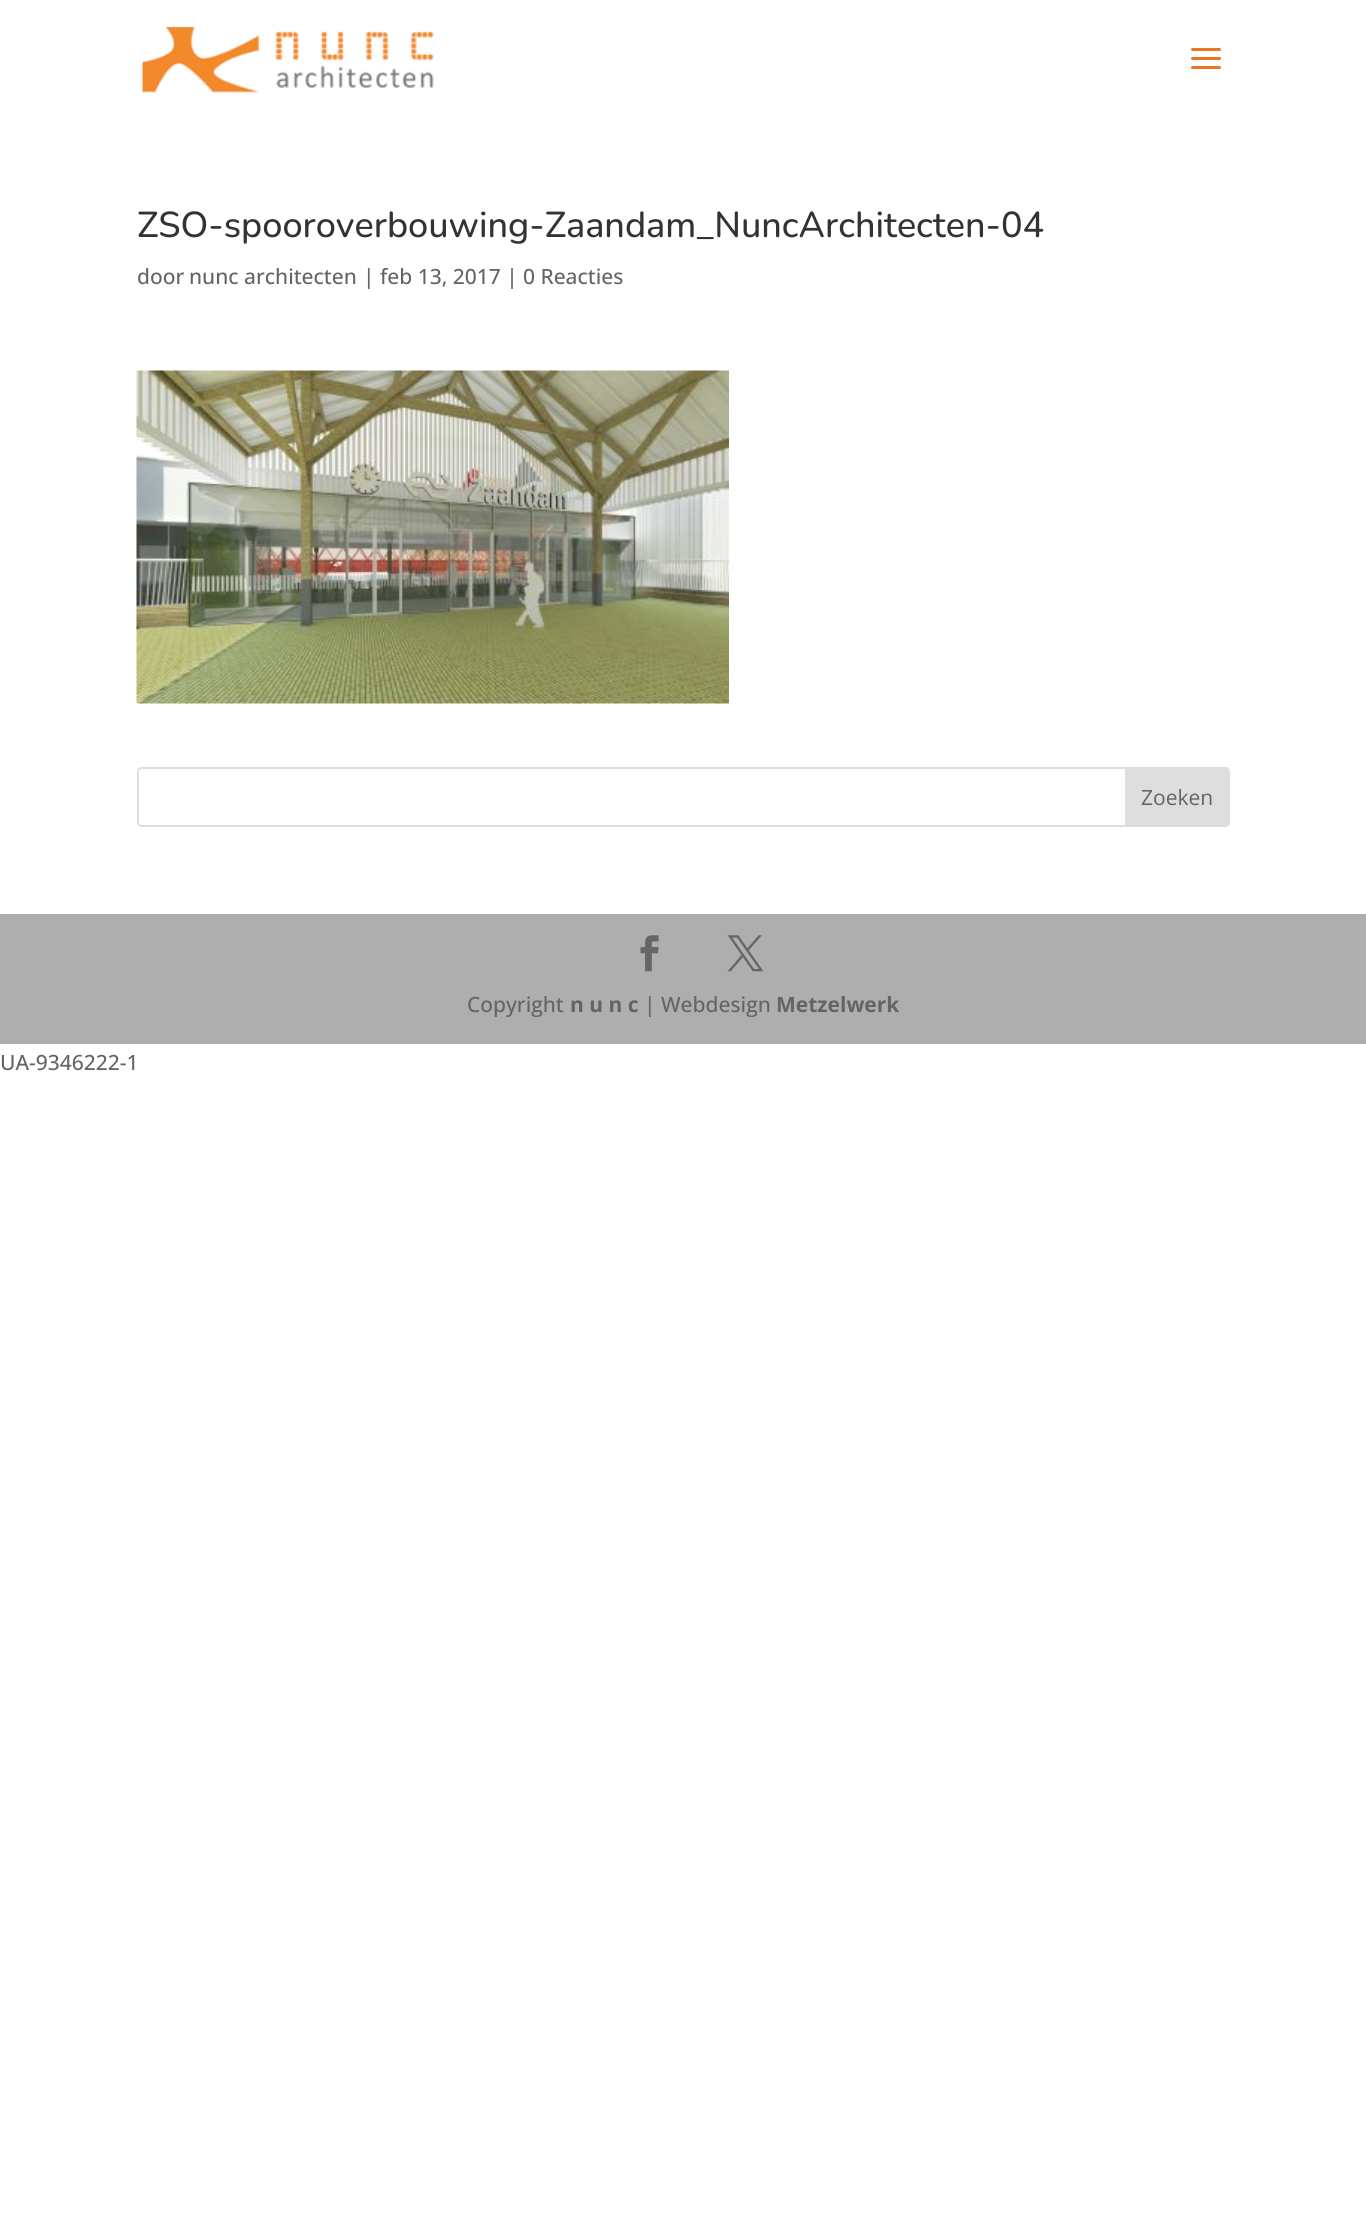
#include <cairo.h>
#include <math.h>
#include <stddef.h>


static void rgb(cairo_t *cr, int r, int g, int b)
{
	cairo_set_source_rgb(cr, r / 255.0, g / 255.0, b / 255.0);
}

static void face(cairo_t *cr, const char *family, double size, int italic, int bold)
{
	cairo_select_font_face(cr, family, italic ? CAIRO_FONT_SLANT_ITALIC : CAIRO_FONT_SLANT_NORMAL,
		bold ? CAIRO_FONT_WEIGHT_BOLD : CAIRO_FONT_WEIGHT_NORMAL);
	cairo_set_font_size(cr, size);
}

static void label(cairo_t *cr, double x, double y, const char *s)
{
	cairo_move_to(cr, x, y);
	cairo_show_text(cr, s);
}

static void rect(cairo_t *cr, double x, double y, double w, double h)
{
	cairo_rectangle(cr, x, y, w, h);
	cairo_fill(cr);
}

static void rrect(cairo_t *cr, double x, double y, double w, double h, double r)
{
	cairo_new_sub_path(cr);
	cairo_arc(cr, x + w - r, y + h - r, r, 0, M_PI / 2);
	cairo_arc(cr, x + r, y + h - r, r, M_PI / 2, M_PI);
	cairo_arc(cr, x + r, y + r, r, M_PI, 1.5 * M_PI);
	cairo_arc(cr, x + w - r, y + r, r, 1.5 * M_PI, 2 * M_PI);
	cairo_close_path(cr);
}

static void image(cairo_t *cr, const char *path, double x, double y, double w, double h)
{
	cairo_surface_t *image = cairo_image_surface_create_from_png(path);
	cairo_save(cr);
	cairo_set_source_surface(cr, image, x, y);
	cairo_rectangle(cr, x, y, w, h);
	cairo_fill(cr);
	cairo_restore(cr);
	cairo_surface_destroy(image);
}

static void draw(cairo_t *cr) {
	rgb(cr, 255, 255, 255);
	cairo_paint(cr);
	image(cr, "image0.png", 142, 27, 292, 66);
	image(cr, "image1.png", 1191, 48, 30, 21);
	face(cr, "Nunito Medium", 36, 0, 0);
	rgb(cr, 51, 51, 51);
	label(cr, 137, 237, "ZSO-spooroverbouwing-Zaandam_NuncArchitecten-04");
	face(cr, "Open Sans Medium", 21, 0, 0);
	rgb(cr, 99, 100, 102);
	label(cr, 137, 284, "door");
	label(cr, 189, 284, "nunc architecten");
	label(cr, 363, 284, "| feb 13, 2017 |");
	label(cr, 523, 284, "0 Reacties");
	image(cr, "image2.png", 136, 370, 593, 334);
	rrect(cr, 138, 768, 1091, 58, 4);
	rgb(cr, 221, 221, 221);
	cairo_stroke(cr);
	cairo_new_path(cr);
	cairo_move_to(cr, 1126, 768);
	cairo_line_to(cr, 1225, 768);
	cairo_curve_to(cr, 1227, 768, 1229, 770, 1229, 772);
	cairo_line_to(cr, 1229, 822);
	cairo_curve_to(cr, 1229, 824, 1227, 826, 1225, 826);
	cairo_line_to(cr, 1126, 826);
	cairo_close_path(cr);
	cairo_fill_preserve(cr);
	cairo_stroke(cr);
	face(cr, "Open Sans", 21, 0, 0);
	rgb(cr, 99, 100, 102);
	label(cr, 1141, 805, "Zoeken");
	rgb(cr, 174, 174, 174);
	rect(cr, 0, 914, 1366, 130);
	image(cr, "image3.png", 640, 935, 19, 37);
	image(cr, "image4.png", 727, 935, 37, 37);
	face(cr, "Open Sans Medium", 21, 0, 0);
	rgb(cr, 99, 100, 102);
	label(cr, 467, 1012, "Copyright");
	face(cr, "Open Sans", 21, 0, 1);
	label(cr, 570, 1012, "n u n c");
	face(cr, "Open Sans Medium", 21, 0, 0);
	label(cr, 644, 1012, "| Webdesign");
	face(cr, "Open Sans", 21, 0, 1);
	label(cr, 776, 1012, "Metzelwerk");
	face(cr, "Open Sans Medium", 21, 0, 0);
	label(cr, 0, 1070, "UA-9346222-1");
}

int main(void) {
	cairo_surface_t *surface = cairo_image_surface_create(CAIRO_FORMAT_RGB24, 1366, 2219);
	cairo_t *cr = cairo_create(surface);
	cairo_font_options_t *options = cairo_font_options_create();
	cairo_font_options_set_hint_metrics(options, CAIRO_HINT_METRICS_OFF);
	cairo_font_options_set_hint_style(options, CAIRO_HINT_STYLE_NONE);
	cairo_set_font_options(cr, options);
	cairo_set_miter_limit(cr, 4);
	draw(cr);
	cairo_surface_write_to_png(surface, "render.png");
	cairo_font_options_destroy(options);
	cairo_destroy(cr);
	cairo_surface_destroy(surface);
	return 0;
}
